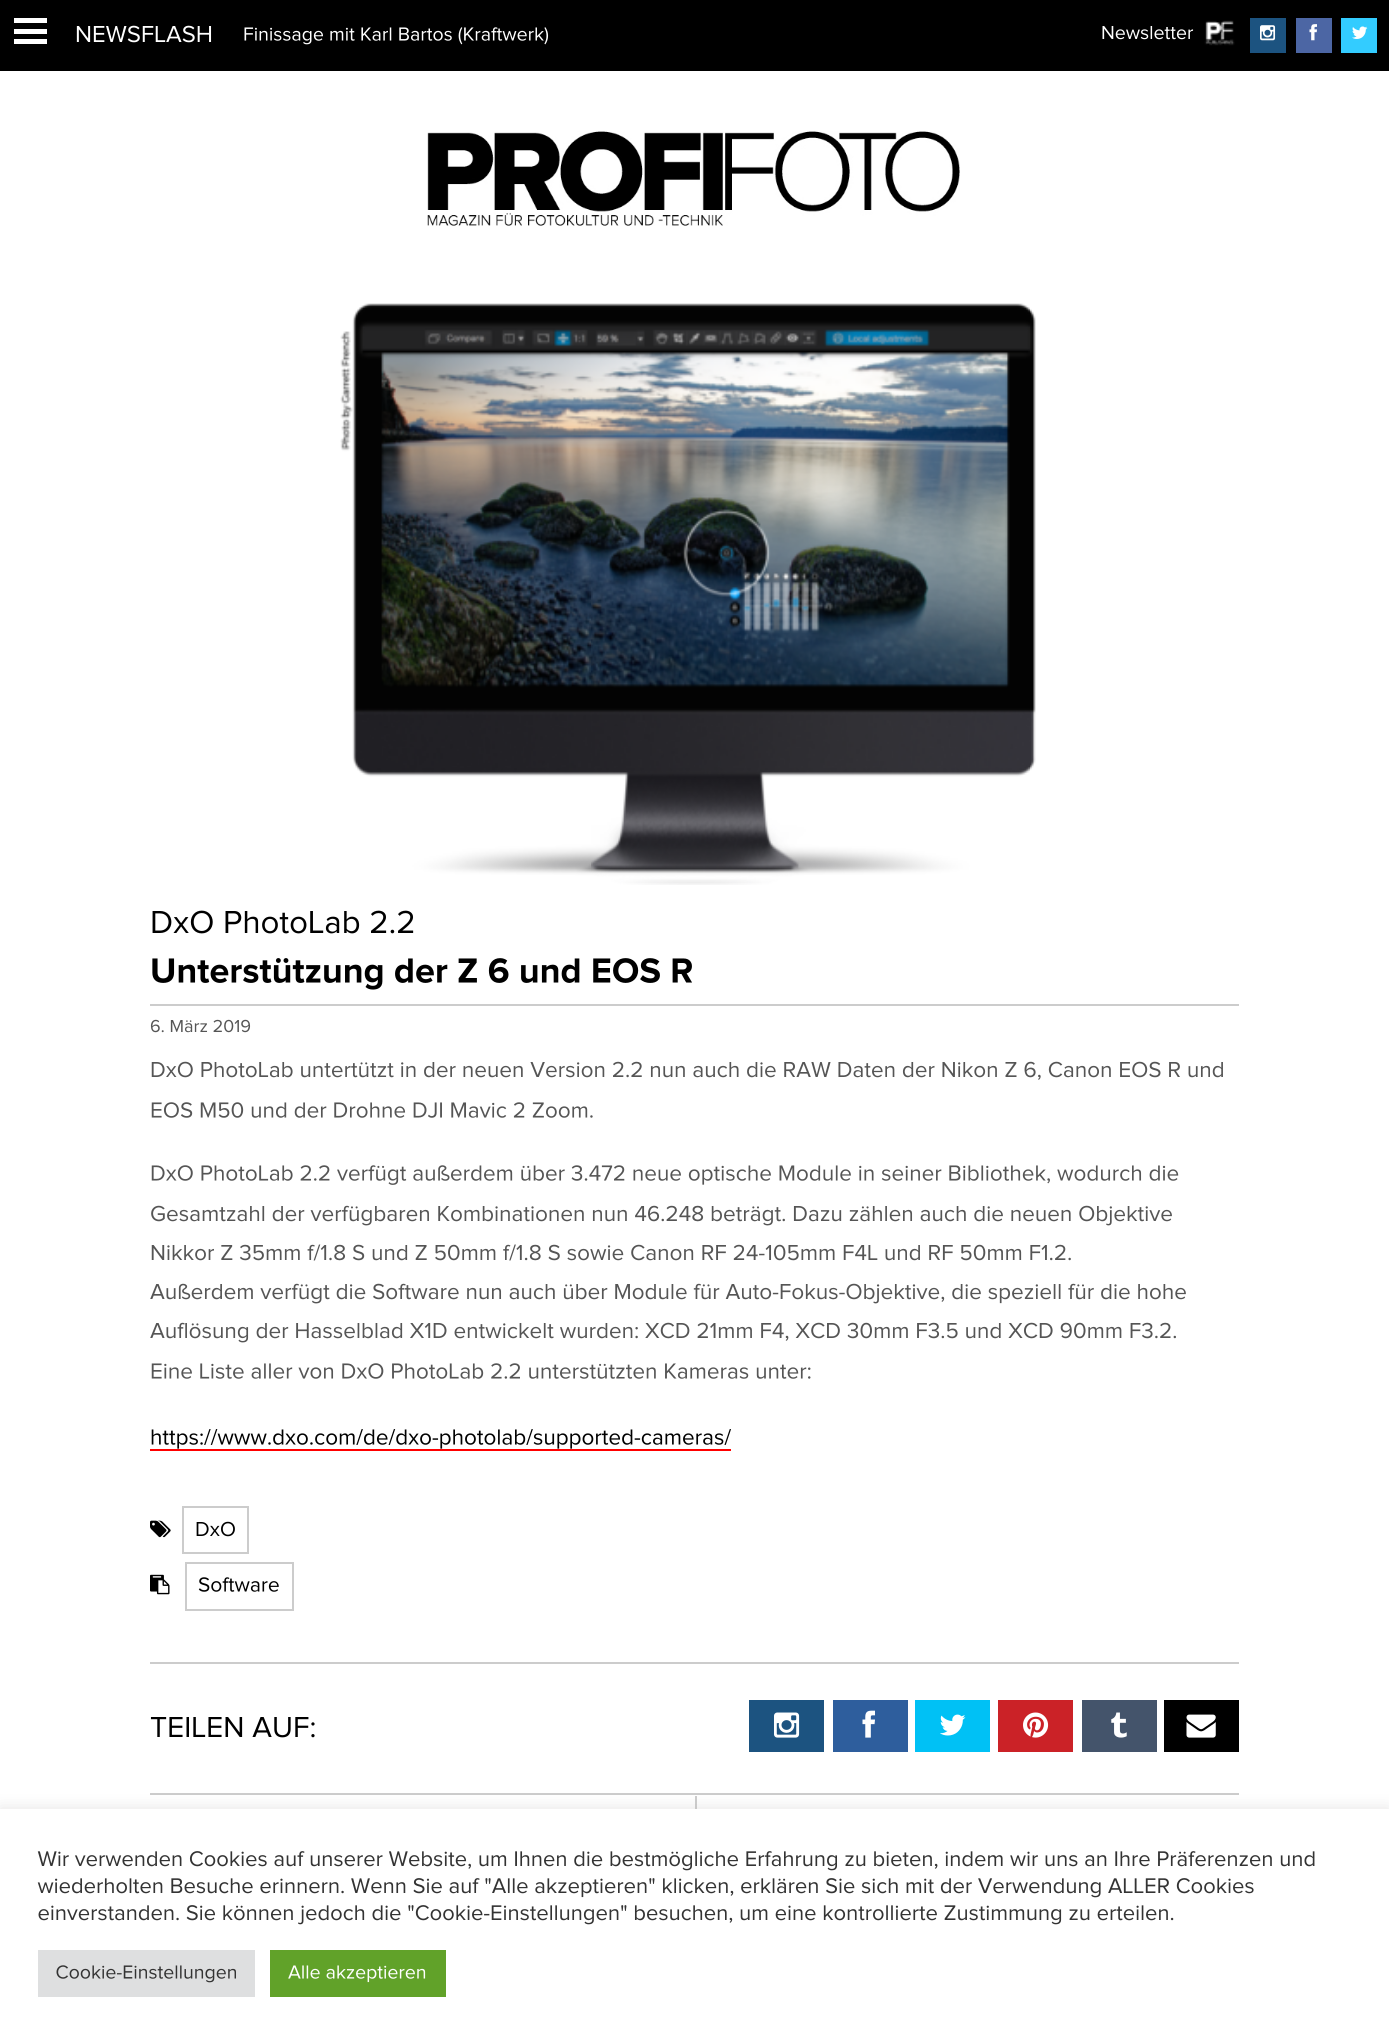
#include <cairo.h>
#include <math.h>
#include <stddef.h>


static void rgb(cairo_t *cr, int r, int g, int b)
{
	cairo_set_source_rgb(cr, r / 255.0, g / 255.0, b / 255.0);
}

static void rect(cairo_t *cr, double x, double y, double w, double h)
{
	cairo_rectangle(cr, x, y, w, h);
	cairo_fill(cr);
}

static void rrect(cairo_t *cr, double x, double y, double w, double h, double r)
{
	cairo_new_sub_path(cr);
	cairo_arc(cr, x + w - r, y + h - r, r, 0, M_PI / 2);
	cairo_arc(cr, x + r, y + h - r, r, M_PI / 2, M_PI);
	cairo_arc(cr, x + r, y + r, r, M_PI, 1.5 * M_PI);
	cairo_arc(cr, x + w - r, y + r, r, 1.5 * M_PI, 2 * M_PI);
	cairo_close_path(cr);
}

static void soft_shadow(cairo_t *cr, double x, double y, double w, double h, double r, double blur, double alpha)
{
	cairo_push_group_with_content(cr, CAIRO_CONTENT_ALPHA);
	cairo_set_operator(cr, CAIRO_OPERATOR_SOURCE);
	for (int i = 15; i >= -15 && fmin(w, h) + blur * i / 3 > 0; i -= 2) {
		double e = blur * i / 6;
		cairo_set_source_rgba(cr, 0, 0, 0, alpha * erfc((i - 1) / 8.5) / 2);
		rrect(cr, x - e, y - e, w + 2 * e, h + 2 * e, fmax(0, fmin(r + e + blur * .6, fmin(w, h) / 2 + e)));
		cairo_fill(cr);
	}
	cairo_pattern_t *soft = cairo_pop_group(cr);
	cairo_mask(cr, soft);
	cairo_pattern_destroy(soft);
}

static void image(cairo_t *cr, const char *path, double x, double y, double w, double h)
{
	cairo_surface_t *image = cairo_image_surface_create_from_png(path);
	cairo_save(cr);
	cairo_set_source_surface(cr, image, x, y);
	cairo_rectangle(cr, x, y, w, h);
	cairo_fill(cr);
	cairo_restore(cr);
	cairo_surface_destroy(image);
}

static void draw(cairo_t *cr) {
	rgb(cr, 255, 255, 255);
	cairo_paint(cr);
	rgb(cr, 0, 0, 0);
	rect(cr, 0, 0, 1389, 71);
	image(cr, "image0.png", 76, 25, 136, 18);
	image(cr, "image1.png", 244, 27, 305, 18);
	image(cr, "image2.png", 1102, 26, 92, 14);
	image(cr, "image3.png", 1204, 20, 31, 26);
	rgb(cr, 28, 83, 128);
	rect(cr, 1250, 18, 36, 35);
	image(cr, "image4.png", 1260, 25, 16, 16);
	rgb(cr, 76, 102, 164);
	rect(cr, 1296, 18, 36, 35);
	image(cr, "image5.png", 1309, 24, 8, 17);
	rgb(cr, 51, 204, 255);
	rect(cr, 1341, 18, 36, 35);
	image(cr, "image6.png", 1352, 26, 16, 13);
	rgb(cr, 255, 255, 255);
	rect(cr, 14, 18, 33, 5);
	rect(cr, 14, 29, 33, 5);
	rect(cr, 14, 39, 33, 5);
	image(cr, "image7.png", 427, 131, 533, 95);
	image(cr, "image8.png", 340, 303, 696, 582);
	image(cr, "image9.png", 152, 910, 262, 24);
	image(cr, "image10.png", 152, 958, 540, 32);
	rgb(cr, 204, 204, 204);
	rect(cr, 150, 1004, 1089, 2);
	image(cr, "image11.png", 150, 1019, 101, 14);
	image(cr, "image12.png", 151, 1061, 1072, 19);
	image(cr, "image13.png", 151, 1102, 442, 16);
	image(cr, "image14.png", 151, 1165, 1028, 20);
	image(cr, "image15.png", 151, 1205, 1021, 21);
	image(cr, "image16.png", 151, 1244, 920, 17);
	image(cr, "image17.png", 150, 1283, 1036, 21);
	image(cr, "image18.png", 150, 1322, 1026, 21);
	image(cr, "image19.png", 151, 1363, 660, 16);
	image(cr, "image20.png", 151, 1429, 580, 20);
	rgb(cr, 255, 0, 0);
	rect(cr, 150, 1449, 581, 2);
	image(cr, "image21.png", 150, 1520, 21, 18);
	cairo_rectangle(cr, 183, 1507, 65, 46);
	rgb(cr, 204, 204, 204);
	cairo_stroke(cr);
	image(cr, "image22.png", 196, 1521, 39, 16);
	image(cr, "image23.png", 150, 1574, 20, 21);
	cairo_rectangle(cr, 186, 1563, 107, 47);
	cairo_stroke(cr);
	image(cr, "image24.png", 198, 1577, 81, 15);
	rect(cr, 150, 1662, 1089, 2);
	image(cr, "image25.png", 150, 1717, 165, 21);
	rgb(cr, 28, 83, 128);
	rect(cr, 749, 1700, 75, 52);
	image(cr, "image26.png", 774, 1712, 26, 26);
	rgb(cr, 46, 94, 157);
	rect(cr, 833, 1700, 75, 52);
	image(cr, "image27.png", 862, 1710, 13, 28);
	rgb(cr, 0, 193, 245);
	rect(cr, 915, 1700, 75, 52);
	image(cr, "image28.png", 940, 1714, 26, 22);
	rgb(cr, 203, 34, 39);
	rect(cr, 998, 1700, 75, 52);
	image(cr, "image29.png", 1023, 1712, 26, 26);
	rgb(cr, 68, 84, 107);
	rect(cr, 1082, 1700, 75, 52);
	image(cr, "image30.png", 1111, 1712, 16, 26);
	rgb(cr, 0, 0, 0);
	rect(cr, 1164, 1700, 75, 52);
	image(cr, "image31.png", 1186, 1714, 30, 24);
	rgb(cr, 204, 204, 204);
	rect(cr, 150, 1793, 1089, 2);
	rect(cr, 695, 1796, 2, 13);
	rgb(cr, 172, 171, 171);
	soft_shadow(cr, 0, 1808, 1389, 232, 0, 7.5, 0.3);
	rgb(cr, 255, 255, 255);
	rect(cr, 0, 1809, 1389, 232);
	image(cr, "image32.png", 37, 1851, 1278, 20);
	image(cr, "image33.png", 37, 1878, 1217, 20);
	image(cr, "image34.png", 38, 1905, 1136, 20);
	rgb(cr, 222, 223, 224);
	rect(cr, 38, 1950, 217, 47);
	image(cr, "image35.png", 56, 1965, 180, 18);
	rgb(cr, 97, 162, 41);
	rect(cr, 270, 1950, 176, 47);
	image(cr, "image36.png", 288, 1965, 138, 18);
}

int main(void) {
	cairo_surface_t *surface = cairo_image_surface_create(CAIRO_FORMAT_RGB24, 1389, 2041);
	cairo_t *cr = cairo_create(surface);
	cairo_font_options_t *options = cairo_font_options_create();
	cairo_font_options_set_hint_metrics(options, CAIRO_HINT_METRICS_OFF);
	cairo_font_options_set_hint_style(options, CAIRO_HINT_STYLE_NONE);
	cairo_set_font_options(cr, options);
	cairo_set_miter_limit(cr, 4);
	draw(cr);
	cairo_surface_write_to_png(surface, "render.png");
	cairo_font_options_destroy(options);
	cairo_destroy(cr);
	cairo_surface_destroy(surface);
	return 0;
}
